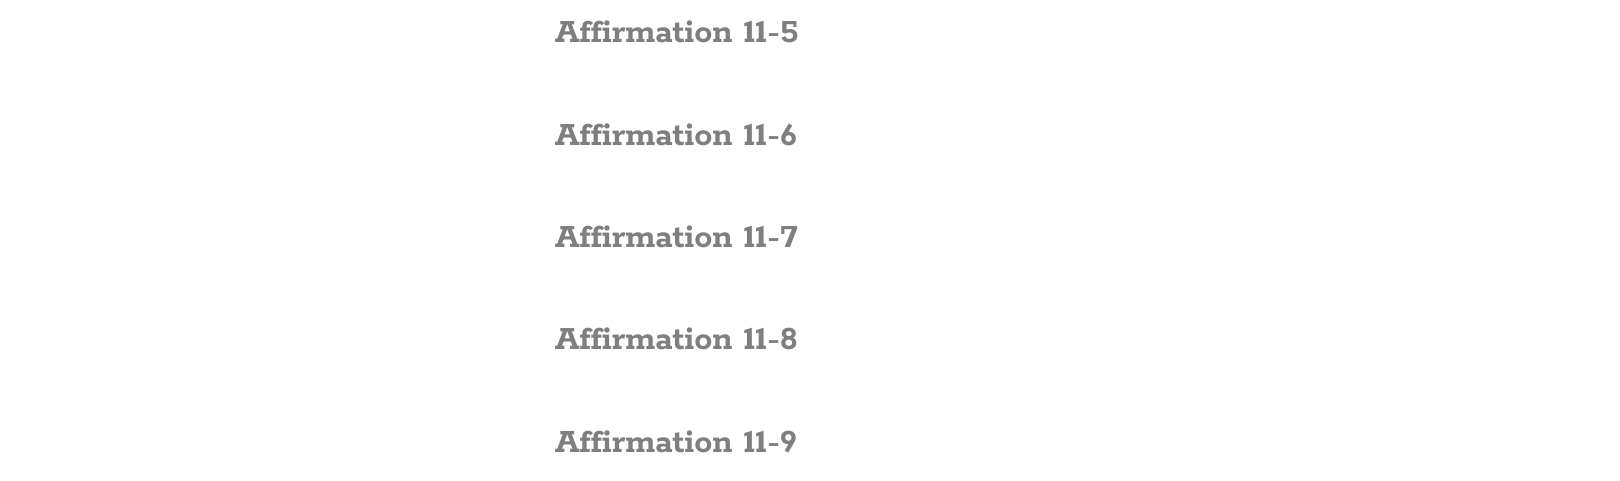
#include <cairo.h>
#include <math.h>
#include <stddef.h>


static void rgb(cairo_t *cr, int r, int g, int b)
{
	cairo_set_source_rgb(cr, r / 255.0, g / 255.0, b / 255.0);
}

static void face(cairo_t *cr, const char *family, double size, int italic, int bold)
{
	cairo_select_font_face(cr, family, italic ? CAIRO_FONT_SLANT_ITALIC : CAIRO_FONT_SLANT_NORMAL,
		bold ? CAIRO_FONT_WEIGHT_BOLD : CAIRO_FONT_WEIGHT_NORMAL);
	cairo_set_font_size(cr, size);
}

static void label(cairo_t *cr, double x, double y, const char *s)
{
	cairo_move_to(cr, x, y);
	cairo_show_text(cr, s);
}

static void draw(cairo_t *cr) {
	rgb(cr, 255, 255, 255);
	cairo_paint(cr);
	face(cr, "Rokkitt", 36, 0, 1);
	rgb(cr, 127, 127, 127);
	label(cr, 555, 42, "Affirmation 11-5");
	label(cr, 555, 145, "Affirmation 11-6");
	label(cr, 555, 247, "Affirmation 11-7");
	label(cr, 555, 349, "Affirmation 11-8");
	label(cr, 555, 452, "Affirmation 11-9");
}

int main(void) {
	cairo_surface_t *surface = cairo_image_surface_create(CAIRO_FORMAT_RGB24, 1620, 481);
	cairo_t *cr = cairo_create(surface);
	cairo_font_options_t *options = cairo_font_options_create();
	cairo_font_options_set_hint_metrics(options, CAIRO_HINT_METRICS_OFF);
	cairo_font_options_set_hint_style(options, CAIRO_HINT_STYLE_NONE);
	cairo_set_font_options(cr, options);
	cairo_set_miter_limit(cr, 4);
	draw(cr);
	cairo_surface_write_to_png(surface, "render.png");
	cairo_font_options_destroy(options);
	cairo_destroy(cr);
	cairo_surface_destroy(surface);
	return 0;
}
